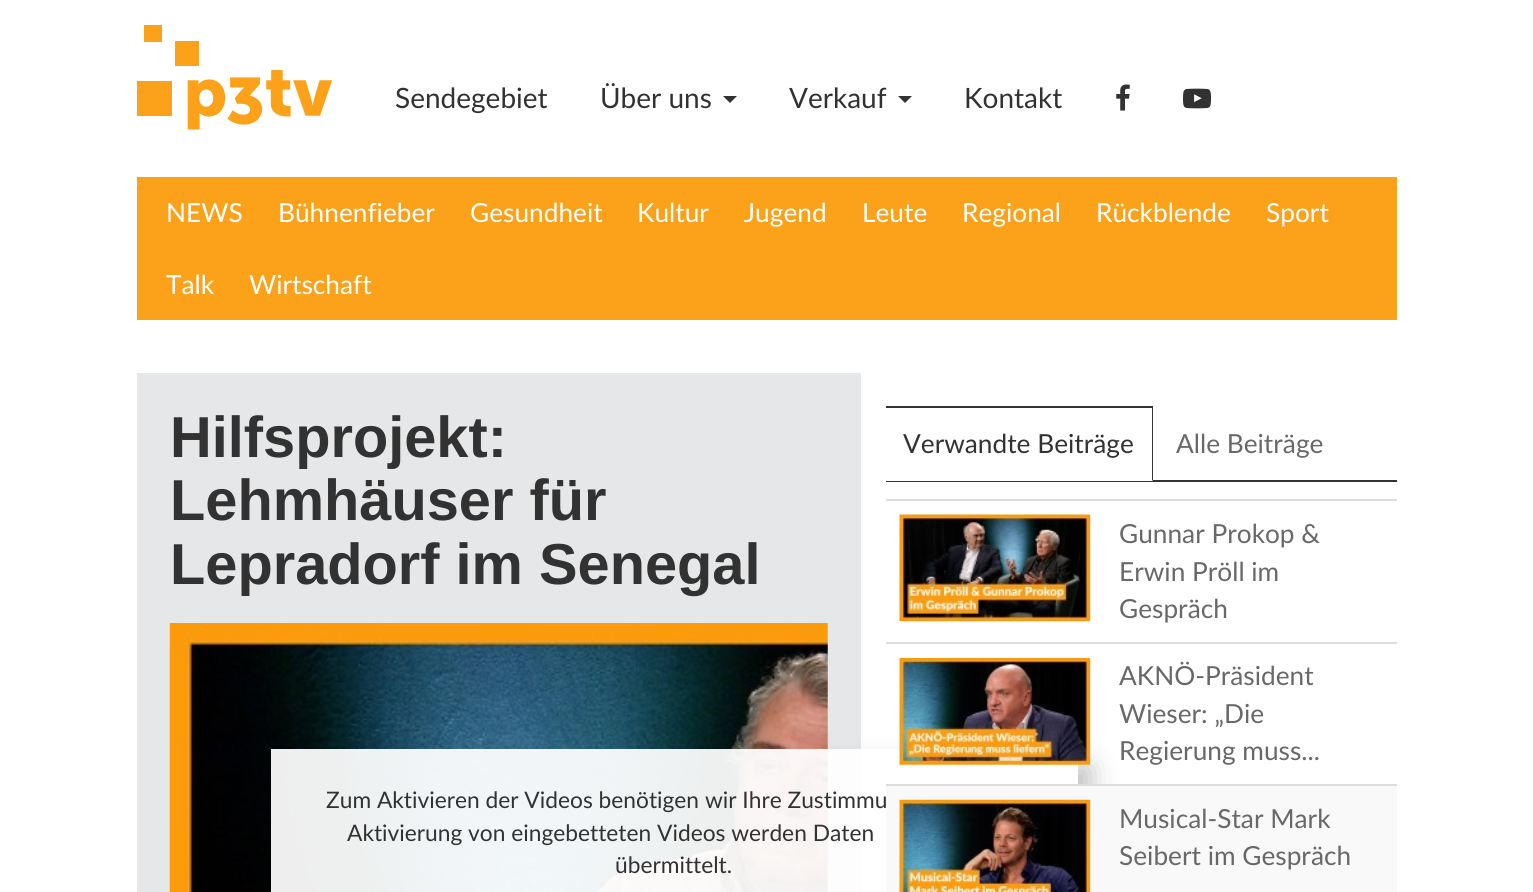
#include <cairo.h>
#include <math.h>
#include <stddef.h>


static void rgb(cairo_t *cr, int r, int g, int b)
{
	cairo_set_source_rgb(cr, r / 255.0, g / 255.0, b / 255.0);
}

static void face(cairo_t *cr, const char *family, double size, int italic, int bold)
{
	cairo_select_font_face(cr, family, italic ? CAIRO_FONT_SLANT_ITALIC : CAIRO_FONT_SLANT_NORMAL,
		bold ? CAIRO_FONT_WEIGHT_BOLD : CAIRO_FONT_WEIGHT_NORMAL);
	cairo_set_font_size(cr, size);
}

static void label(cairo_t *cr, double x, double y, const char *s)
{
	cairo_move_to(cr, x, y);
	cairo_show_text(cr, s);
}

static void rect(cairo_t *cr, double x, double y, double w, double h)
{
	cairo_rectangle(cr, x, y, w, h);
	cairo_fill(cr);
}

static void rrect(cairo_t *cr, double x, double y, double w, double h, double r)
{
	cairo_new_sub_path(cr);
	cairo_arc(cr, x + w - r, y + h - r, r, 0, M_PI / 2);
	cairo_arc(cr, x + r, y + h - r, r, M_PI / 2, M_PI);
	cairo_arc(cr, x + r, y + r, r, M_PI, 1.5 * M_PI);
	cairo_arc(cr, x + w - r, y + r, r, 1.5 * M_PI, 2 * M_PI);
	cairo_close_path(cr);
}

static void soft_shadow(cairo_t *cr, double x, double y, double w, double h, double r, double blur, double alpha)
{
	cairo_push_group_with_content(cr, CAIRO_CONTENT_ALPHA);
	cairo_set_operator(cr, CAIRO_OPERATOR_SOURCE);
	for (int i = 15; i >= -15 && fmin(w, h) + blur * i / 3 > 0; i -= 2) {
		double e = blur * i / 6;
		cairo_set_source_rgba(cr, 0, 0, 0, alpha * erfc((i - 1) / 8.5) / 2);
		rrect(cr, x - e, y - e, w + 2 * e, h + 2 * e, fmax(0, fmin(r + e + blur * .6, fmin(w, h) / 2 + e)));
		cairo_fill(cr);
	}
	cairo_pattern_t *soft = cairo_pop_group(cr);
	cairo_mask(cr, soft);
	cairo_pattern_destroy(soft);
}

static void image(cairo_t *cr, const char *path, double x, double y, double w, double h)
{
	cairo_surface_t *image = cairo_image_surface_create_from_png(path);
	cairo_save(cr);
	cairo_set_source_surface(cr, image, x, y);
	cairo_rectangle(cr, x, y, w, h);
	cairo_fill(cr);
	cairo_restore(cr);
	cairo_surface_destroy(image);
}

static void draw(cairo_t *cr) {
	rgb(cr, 255, 255, 255);
	cairo_paint(cr);
	image(cr, "image0.png", 137, 25, 195, 105);
	face(cr, "Lato", 28, 0, 0);
	rgb(cr, 50, 50, 50);
	label(cr, 395, 108, "Sendegebiet");
	label(cr, 600, 108, "Über uns");
	cairo_new_path(cr);
	cairo_move_to(cr, 723, 96);
	cairo_line_to(cr, 737, 96);
	cairo_line_to(cr, 730, 103);
	cairo_close_path(cr);
	cairo_fill(cr);
	label(cr, 789, 108, "Verkauf");
	cairo_new_path(cr);
	cairo_move_to(cr, 898, 96);
	cairo_line_to(cr, 912, 96);
	cairo_line_to(cr, 905, 103);
	cairo_close_path(cr);
	cairo_fill(cr);
	label(cr, 964, 108, "Kontakt");
	image(cr, "image1.png", 1116, 84, 14, 27);
	image(cr, "image2.png", 1183, 88, 28, 21);
	rgb(cr, 252, 161, 26);
	rect(cr, 137, 177, 1260, 143);
	face(cr, "Lato", 26.25, 0, 0);
	rgb(cr, 255, 255, 255);
	label(cr, 166, 222, "NEWS");
	label(cr, 278, 222, "Bühnenfieber");
	label(cr, 470, 222, "Gesundheit");
	label(cr, 637, 222, "Kultur");
	label(cr, 744, 222, "Jugend");
	label(cr, 862, 222, "Leute");
	label(cr, 962, 222, "Regional");
	label(cr, 1096, 222, "Rückblende");
	label(cr, 1266, 222, "Sport");
	label(cr, 166, 294, "Talk");
	label(cr, 249, 294, "Wirtschaft");
	rgb(cr, 230, 231, 232);
	rect(cr, 137, 373, 724, 519);
	face(cr, "Liberation Sans", 57.75, 0, 1);
	rgb(cr, 50, 50, 50);
	label(cr, 170, 457, "Hilfsprojekt:");
	label(cr, 170, 520, "Lehmhäuser für");
	label(cr, 170, 584, "Lepradorf im Senegal");
	image(cr, "image3.png", 169, 623, 659, 269);
	cairo_save(cr);
	cairo_set_fill_rule(cr, CAIRO_FILL_RULE_EVEN_ODD);
	cairo_new_path(cr);
	cairo_move_to(cr, 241, 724);
	cairo_line_to(cr, 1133, 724);
	cairo_line_to(cr, 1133, 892);
	cairo_line_to(cr, 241, 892);
	cairo_close_path(cr);
	cairo_move_to(cr, 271, 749);
	cairo_line_to(cr, 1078, 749);
	cairo_line_to(cr, 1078, 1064);
	cairo_line_to(cr, 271, 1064);
	cairo_close_path(cr);
	cairo_clip(cr);
	rgb(cr, 0, 0, 0);
	soft_shadow(cr, 284, 767, 806, 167, 0, 14, 0.26);
	cairo_restore(cr);
	cairo_set_source_rgba(cr, 1, 1, 1, 0.93);
	rect(cr, 271, 749, 807, 143);
	face(cr, "Lato", 22.75, 0, 0);
	rgb(cr, 50, 50, 50);
	label(cr, 326, 808, "Zum Aktivieren der Videos benötigen wir Ihre Zustimmu");
	label(cr, 347, 841, "Aktivierung von eingebetteten Videos werden Daten");
	label(cr, 615, 873, "übermittelt.");
	rect(cr, 886, 480, 511, 2);
	rgb(cr, 255, 255, 255);
	rect(cr, 886, 480, 267, 1);
	rgb(cr, 50, 50, 50);
	rect(cr, 886, 406, 267, 2);
	cairo_new_path(cr);
	cairo_move_to(cr, 1153, 406);
	cairo_line_to(cr, 1153, 481);
	cairo_line_to(cr, 1152, 480);
	cairo_line_to(cr, 1152, 408);
	cairo_close_path(cr);
	cairo_fill(cr);
	face(cr, "Lato", 26.25, 0, 0);
	label(cr, 903, 453, "Verwandte Beiträge");
	rgb(cr, 104, 104, 104);
	label(cr, 1176, 453, "Alle Beiträge");
	image(cr, "image4.png", 899, 514, 192, 108);
	rgb(cr, 221, 221, 221);
	rect(cr, 886, 499, 511, 2);
	rgb(cr, 104, 104, 104);
	label(cr, 1119, 543, "Gunnar Prokop &");
	label(cr, 1119, 581, "Erwin Pröll im");
	label(cr, 1119, 618, "Gespräch");
	image(cr, "image5.png", 899, 658, 192, 107);
	rgb(cr, 221, 221, 221);
	rect(cr, 886, 642, 511, 2);
	rgb(cr, 104, 104, 104);
	label(cr, 1119, 685, "AKNÖ-Präsident");
	label(cr, 1119, 723, "Wieser: „Die");
	label(cr, 1119, 760, "Regierung muss...");
	rgb(cr, 249, 249, 249);
	rect(cr, 886, 786, 511, 106);
	image(cr, "image6.png", 899, 799, 192, 93);
	rgb(cr, 221, 221, 221);
	rect(cr, 886, 784, 511, 2);
	rgb(cr, 104, 104, 104);
	label(cr, 1119, 828, "Musical-Star Mark");
	label(cr, 1119, 865, "Seibert im Gespräch");
}

int main(void) {
	cairo_surface_t *surface = cairo_image_surface_create(CAIRO_FORMAT_RGB24, 1533, 892);
	cairo_t *cr = cairo_create(surface);
	cairo_font_options_t *options = cairo_font_options_create();
	cairo_font_options_set_hint_metrics(options, CAIRO_HINT_METRICS_OFF);
	cairo_font_options_set_hint_style(options, CAIRO_HINT_STYLE_NONE);
	cairo_set_font_options(cr, options);
	cairo_set_miter_limit(cr, 4);
	draw(cr);
	cairo_surface_write_to_png(surface, "render.png");
	cairo_font_options_destroy(options);
	cairo_destroy(cr);
	cairo_surface_destroy(surface);
	return 0;
}
